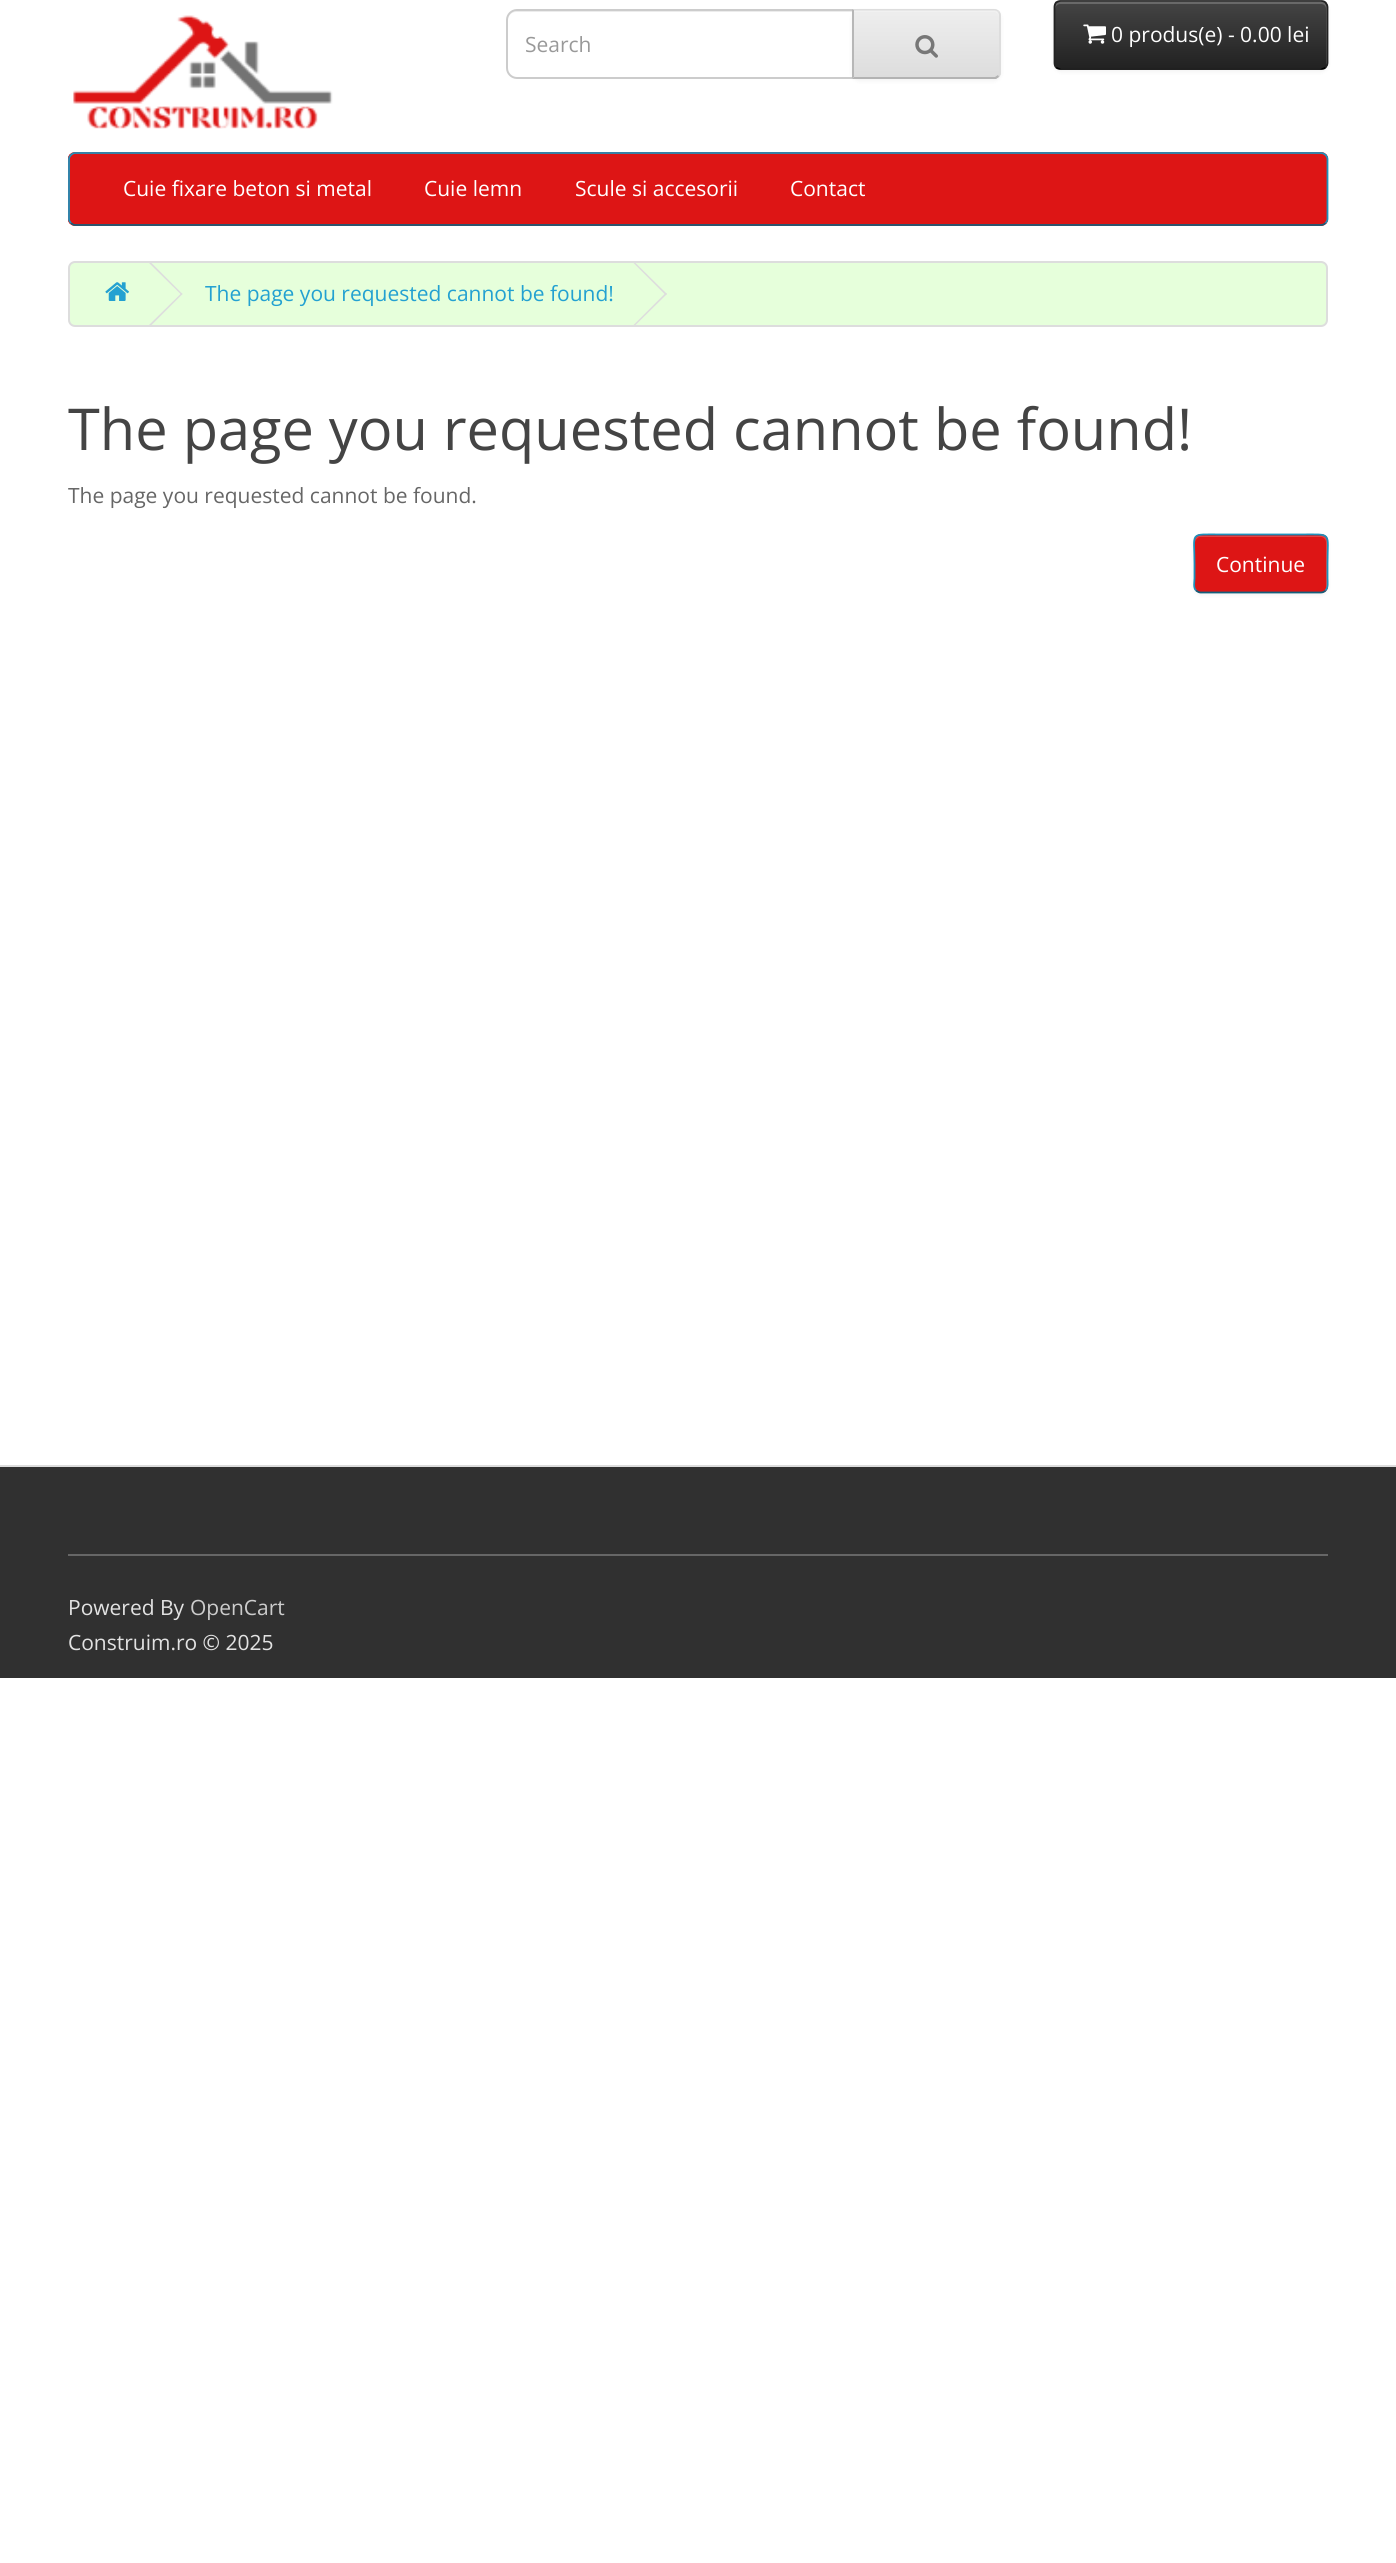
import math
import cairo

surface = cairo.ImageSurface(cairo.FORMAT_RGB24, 1396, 2563)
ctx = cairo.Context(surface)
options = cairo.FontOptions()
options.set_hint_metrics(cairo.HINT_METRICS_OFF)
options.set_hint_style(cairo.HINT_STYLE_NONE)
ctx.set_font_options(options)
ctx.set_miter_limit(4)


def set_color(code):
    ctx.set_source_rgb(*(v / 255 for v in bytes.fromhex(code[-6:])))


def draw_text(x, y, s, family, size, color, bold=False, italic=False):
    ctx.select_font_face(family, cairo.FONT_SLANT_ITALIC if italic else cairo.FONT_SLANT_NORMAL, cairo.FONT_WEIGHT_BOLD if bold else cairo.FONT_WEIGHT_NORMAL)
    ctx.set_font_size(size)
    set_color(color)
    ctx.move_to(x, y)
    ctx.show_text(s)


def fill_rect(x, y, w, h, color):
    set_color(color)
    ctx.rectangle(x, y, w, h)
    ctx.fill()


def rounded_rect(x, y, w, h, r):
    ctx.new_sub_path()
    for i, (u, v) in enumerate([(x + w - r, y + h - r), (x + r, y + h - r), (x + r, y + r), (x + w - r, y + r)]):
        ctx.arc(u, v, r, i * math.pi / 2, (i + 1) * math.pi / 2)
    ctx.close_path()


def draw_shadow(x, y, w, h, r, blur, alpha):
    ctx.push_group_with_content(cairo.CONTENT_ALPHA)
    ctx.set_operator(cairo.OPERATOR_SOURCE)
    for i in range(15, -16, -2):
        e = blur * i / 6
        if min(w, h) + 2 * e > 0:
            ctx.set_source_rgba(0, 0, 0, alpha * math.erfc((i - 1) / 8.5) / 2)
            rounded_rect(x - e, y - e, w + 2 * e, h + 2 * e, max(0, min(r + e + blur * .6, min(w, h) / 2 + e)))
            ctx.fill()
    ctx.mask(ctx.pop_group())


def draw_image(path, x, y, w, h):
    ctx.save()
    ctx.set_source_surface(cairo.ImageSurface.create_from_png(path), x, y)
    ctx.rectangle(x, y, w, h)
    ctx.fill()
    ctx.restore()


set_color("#ffffff")
ctx.paint()
draw_image("assets/img1.png", 73, 15, 260, 114)
set_color("#ececec")
ctx.new_path()
ctx.move_to(516, 12)
ctx.line_to(852, 12)
ctx.line_to(852, 11)
ctx.line_to(517, 11)
ctx.curve_to(511, 11, 508, 16, 508, 21)
ctx.curve_to(508, 16, 511, 12, 516, 12)
ctx.close_path()
ctx.fill()
ctx.new_path()
ctx.move_to(517, 10)
ctx.line_to(853, 10)
ctx.line_to(853, 78)
ctx.line_to(517, 78)
ctx.curve_to(511.5, 78, 507, 73.5, 507, 68)
ctx.line_to(507, 20)
ctx.curve_to(507, 14.5, 511.5, 10, 517, 10)
ctx.close_path()
set_color("#cccccc")
ctx.stroke()
draw_text(525, 52, "Search", "Open Sans", 21, "#999999")
set_color("#000000")
draw_shadow(852, 11, 149, 70, 7, 2, 0.05)
set_color("#e7e7e7")
ctx.new_path()
ctx.move_to(852, 9)
ctx.line_to(994, 9)
ctx.curve_to(998, 9, 1001, 12, 1001, 16)
ctx.line_to(1001, 72)
ctx.curve_to(1001, 76, 998, 79, 994, 79)
ctx.line_to(852, 79)
ctx.close_path()
ctx.fill()
ctx.save()
ctx.new_path()
ctx.move_to(852, 9)
ctx.line_to(994, 9)
ctx.curve_to(998, 9, 1001, 12, 1001, 16)
ctx.line_to(1001, 72)
ctx.curve_to(1001, 76, 998, 79, 994, 79)
ctx.line_to(852, 79)
ctx.close_path()
ctx.clip()
gradient = cairo.LinearGradient(927, 10, 927, 77)
gradient.add_color_stop_rgba(0, 0.933, 0.933, 0.933, 1)
gradient.add_color_stop_rgba(1, 0.867, 0.867, 0.867, 1)
ctx.set_source(gradient)
ctx.rectangle(854, 11, 147, 66)
ctx.fill()
ctx.restore()
set_color("#f1f1f1")
ctx.new_path()
ctx.move_to(854, 12)
ctx.line_to(994, 12)
ctx.curve_to(997, 12, 999, 15, 999, 18)
ctx.line_to(999, 16)
ctx.curve_to(999, 13, 997, 11, 994, 11)
ctx.line_to(854, 11)
ctx.close_path()
ctx.fill()
set_color("#dddddd")
ctx.new_path()
ctx.move_to(854, 10)
ctx.line_to(994, 10)
ctx.curve_to(996, 10, 997, 11, 998, 12)
ctx.line_to(999, 11)
ctx.curve_to(998, 10, 996, 9, 994, 9)
ctx.line_to(852, 9)
ctx.close_path()
ctx.fill()
ctx.new_path()
ctx.move_to(999, 11)
ctx.curve_to(1000, 12, 1001, 14, 1001, 16)
ctx.line_to(1001, 72)
ctx.curve_to(1001, 74, 1000, 76, 999, 77)
ctx.line_to(998, 75)
ctx.curve_to(999, 75, 999, 73, 999, 72)
ctx.line_to(999, 16)
ctx.curve_to(999, 15, 999, 13, 998, 12)
ctx.close_path()
ctx.fill()
set_color("#b3b3b3")
ctx.new_path()
ctx.move_to(999, 77)
ctx.line_to(996, 79)
ctx.line_to(852, 79)
ctx.line_to(854, 77)
ctx.line_to(995, 77)
ctx.line_to(998, 75)
ctx.close_path()
ctx.fill()
set_color("#b7b7b7")
ctx.new_path()
ctx.move_to(852, 79)
ctx.line_to(854, 77)
ctx.line_to(854, 10)
ctx.line_to(852, 9)
ctx.close_path()
ctx.fill()
draw_image("assets/img2.png", 915, 35, 23, 23)
set_color("#000000")
draw_shadow(1054, 2, 274, 70, 7, 2, 0.05)
ctx.save()
rounded_rect(1054, 0, 274, 70, 7)
ctx.clip()
gradient = cairo.LinearGradient(1191, 1.7, 1191, 68)
gradient.add_color_stop_rgba(0, 0.267, 0.267, 0.267, 1)
gradient.add_color_stop_rgba(1, 0.133, 0.133, 0.133, 1)
ctx.set_source(gradient)
ctx.rectangle(1054, 2, 274, 66)
ctx.fill()
ctx.restore()
ctx.set_source_rgba(1, 1, 1, 0.2)
ctx.new_path()
ctx.move_to(1060, 4)
ctx.line_to(1321, 4)
ctx.curve_to(1324, 4, 1326, 6, 1326, 9)
ctx.line_to(1326, 66)
ctx.curve_to(1327, 65, 1327, 64, 1327, 63)
ctx.line_to(1327, 7)
ctx.curve_to(1327, 4, 1325, 2, 1322, 2)
ctx.line_to(1060, 2)
ctx.curve_to(1057, 2, 1055, 4, 1055, 7)
ctx.line_to(1055, 9)
ctx.curve_to(1055, 6, 1058, 4, 1060, 4)
ctx.close_path()
ctx.fill()
ctx.new_path()
ctx.move_to(1325.5, 67.5)
ctx.curve_to(1324.5, 68.5, 1323, 69, 1321, 69)
ctx.line_to(1060.5, 69)
ctx.curve_to(1059, 69, 1057.5, 68.5, 1056, 67.5)
set_color("#000000")
ctx.set_line_width(1.8)
ctx.stroke()
ctx.new_path()
ctx.move_to(1056, 67.5)
ctx.curve_to(1055, 66, 1054.5, 64.5, 1054.5, 63)
ctx.line_to(1054.5, 7)
ctx.curve_to(1054.5, 5.5, 1055, 4, 1056, 2.5)
ctx.curve_to(1057.5, 1.5, 1059, 1, 1060.5, 1)
ctx.line_to(1321, 1)
ctx.curve_to(1323, 1, 1324.5, 1.5, 1325.5, 2.5)
ctx.curve_to(1326.5, 4, 1327.5, 5.5, 1327.5, 7)
ctx.line_to(1327.5, 63)
ctx.curve_to(1327.5, 64.5, 1326.5, 66, 1325.5, 67.5)
set_color("#222222")
ctx.stroke()
draw_image("assets/img3.png", 1083, 24, 23, 20)
draw_text(1111, 42, "0 produs(e) - 0.00 lei", "Open Sans", 21, "#ffffff")
set_color("#dd1515")
rounded_rect(68, 152, 1260, 74, 7)
ctx.fill()
ctx.save()
rounded_rect(68, 152, 1260, 74, 7)
ctx.clip()
fill_rect(68, 154, 1260, 70, "#dd1515")
ctx.restore()
ctx.new_path()
ctx.move_to(1325.5, 223)
ctx.curve_to(1324.5, 224, 1323, 225, 1321, 225)
ctx.line_to(75, 225)
ctx.curve_to(73.5, 225, 72, 224, 71, 223)
set_color("#145e7a")
ctx.stroke()
ctx.new_path()
ctx.move_to(71, 223)
ctx.curve_to(70, 222, 69, 220.5, 69, 219)
ctx.line_to(69, 159)
ctx.curve_to(69, 157.5, 70, 156, 71, 155)
ctx.curve_to(72, 154, 73.5, 153, 75, 153)
ctx.line_to(1321, 153)
ctx.curve_to(1323, 153, 1324.5, 154, 1325.5, 155)
ctx.curve_to(1326.5, 156, 1327.5, 157.5, 1327.5, 159)
ctx.line_to(1327.5, 219)
ctx.curve_to(1327.5, 220.5, 1326.5, 222, 1325.5, 223)
set_color("#1f90bb")
ctx.stroke()
draw_text(123, 196, "Cuie fixare beton si metal", "Open Sans", 21, "#ffffff")
draw_text(424, 196, "Cuie lemn", "Open Sans", 21, "#ffffff")
draw_text(575, 196, "Scule si accesorii", "Open Sans", 21, "#ffffff")
draw_text(790, 196, "Contact", "Open Sans", 21, "#ffffff")
set_color("#e6ffdb")
rounded_rect(69, 262, 1258, 64, 6)
ctx.fill_preserve()
set_color("#dddddd")
ctx.set_line_width(2)
ctx.stroke()
draw_image("assets/img4.png", 105, 282, 24, 19)
ctx.new_path()
ctx.move_to(149, 263)
ctx.line_to(150.5, 262)
ctx.line_to(182.5, 294)
ctx.line_to(181.5, 295)
ctx.close_path()
ctx.fill()
ctx.new_path()
ctx.move_to(149, 325)
ctx.line_to(181.5, 293)
ctx.line_to(182.5, 294)
ctx.line_to(150.5, 326)
ctx.close_path()
ctx.fill()
draw_text(205, 301, "The page you requested cannot be found!", "Open Sans", 21, "#23a1d1")
set_color("#dddddd")
ctx.new_path()
ctx.move_to(633.5, 263)
ctx.line_to(634.5, 262)
ctx.line_to(667, 294)
ctx.line_to(665.5, 295)
ctx.close_path()
ctx.fill()
ctx.new_path()
ctx.move_to(633.5, 325)
ctx.line_to(665.5, 293)
ctx.line_to(667, 294)
ctx.line_to(634.5, 326)
ctx.close_path()
ctx.fill()
draw_text(68, 450, "The page you requested cannot be found!", "Open Sans", 57.75, "#444444")
draw_text(68, 503, "The page you requested cannot be found.", "Open Sans", 21, "#666666")
set_color("#000000")
draw_shadow(1194, 536, 134, 59, 7, 2, 0.05)
set_color("#dd1515")
rounded_rect(1194, 534, 134, 59, 7)
ctx.fill()
ctx.save()
rounded_rect(1194, 534, 134, 59, 7)
ctx.clip()
fill_rect(1194, 536, 134, 56, "#dd1515")
ctx.restore()
set_color("#e44444")
ctx.new_path()
ctx.move_to(1200, 537)
ctx.line_to(1321, 537)
ctx.curve_to(1324, 537, 1326, 540, 1326, 542)
ctx.line_to(1326, 588)
ctx.line_to(1325, 591)
ctx.curve_to(1326, 590, 1327, 588, 1327, 587)
ctx.line_to(1327, 541)
ctx.curve_to(1327, 538, 1325, 536, 1322, 536)
ctx.line_to(1200, 536)
ctx.curve_to(1197, 536, 1195, 538, 1195, 541)
ctx.line_to(1195, 542)
ctx.curve_to(1195, 540, 1198, 537, 1200, 537)
ctx.close_path()
ctx.fill()
ctx.new_path()
ctx.move_to(1325.5, 590.5)
ctx.curve_to(1324.5, 591.5, 1323, 592.5, 1321, 592.5)
ctx.line_to(1200.5, 592.5)
ctx.curve_to(1199, 592.5, 1197.5, 591.5, 1196, 590.5)
set_color("#145e7a")
ctx.set_line_width(1.8)
ctx.stroke()
ctx.new_path()
ctx.move_to(1196, 590.5)
ctx.curve_to(1193, 587.5, 1194.5, 582, 1194.5, 578.5)
ctx.line_to(1194.5, 563.5)
ctx.curve_to(1194.5, 531.5, 1188.5, 534.5, 1220.5, 534.5)
ctx.line_to(1301, 534.5)
ctx.curve_to(1333, 534.5, 1327.5, 531.5, 1327.5, 563.5)
ctx.line_to(1327.5, 578.5)
ctx.curve_to(1327.5, 582, 1328.5, 587.5, 1325.5, 590.5)
set_color("#1f90bb")
ctx.stroke()
draw_text(1216, 572, "Continue", "Open Sans", 21, "#ffffff")
fill_rect(0, 1467, 1396, 211, "#303030")
fill_rect(0, 1465, 1396, 2, "#dddddd")
fill_rect(68, 1554, 1260, 2, "#666666")
draw_text(68, 1615, "Powered By", "Open Sans", 21, "#e2e2e2")
draw_text(190, 1615, "OpenCart", "Open Sans", 21, "#cccccc")
draw_text(68, 1650, "Construim.ro © 2025", "Open Sans", 21, "#e2e2e2")
surface.write_to_png("output.png")
